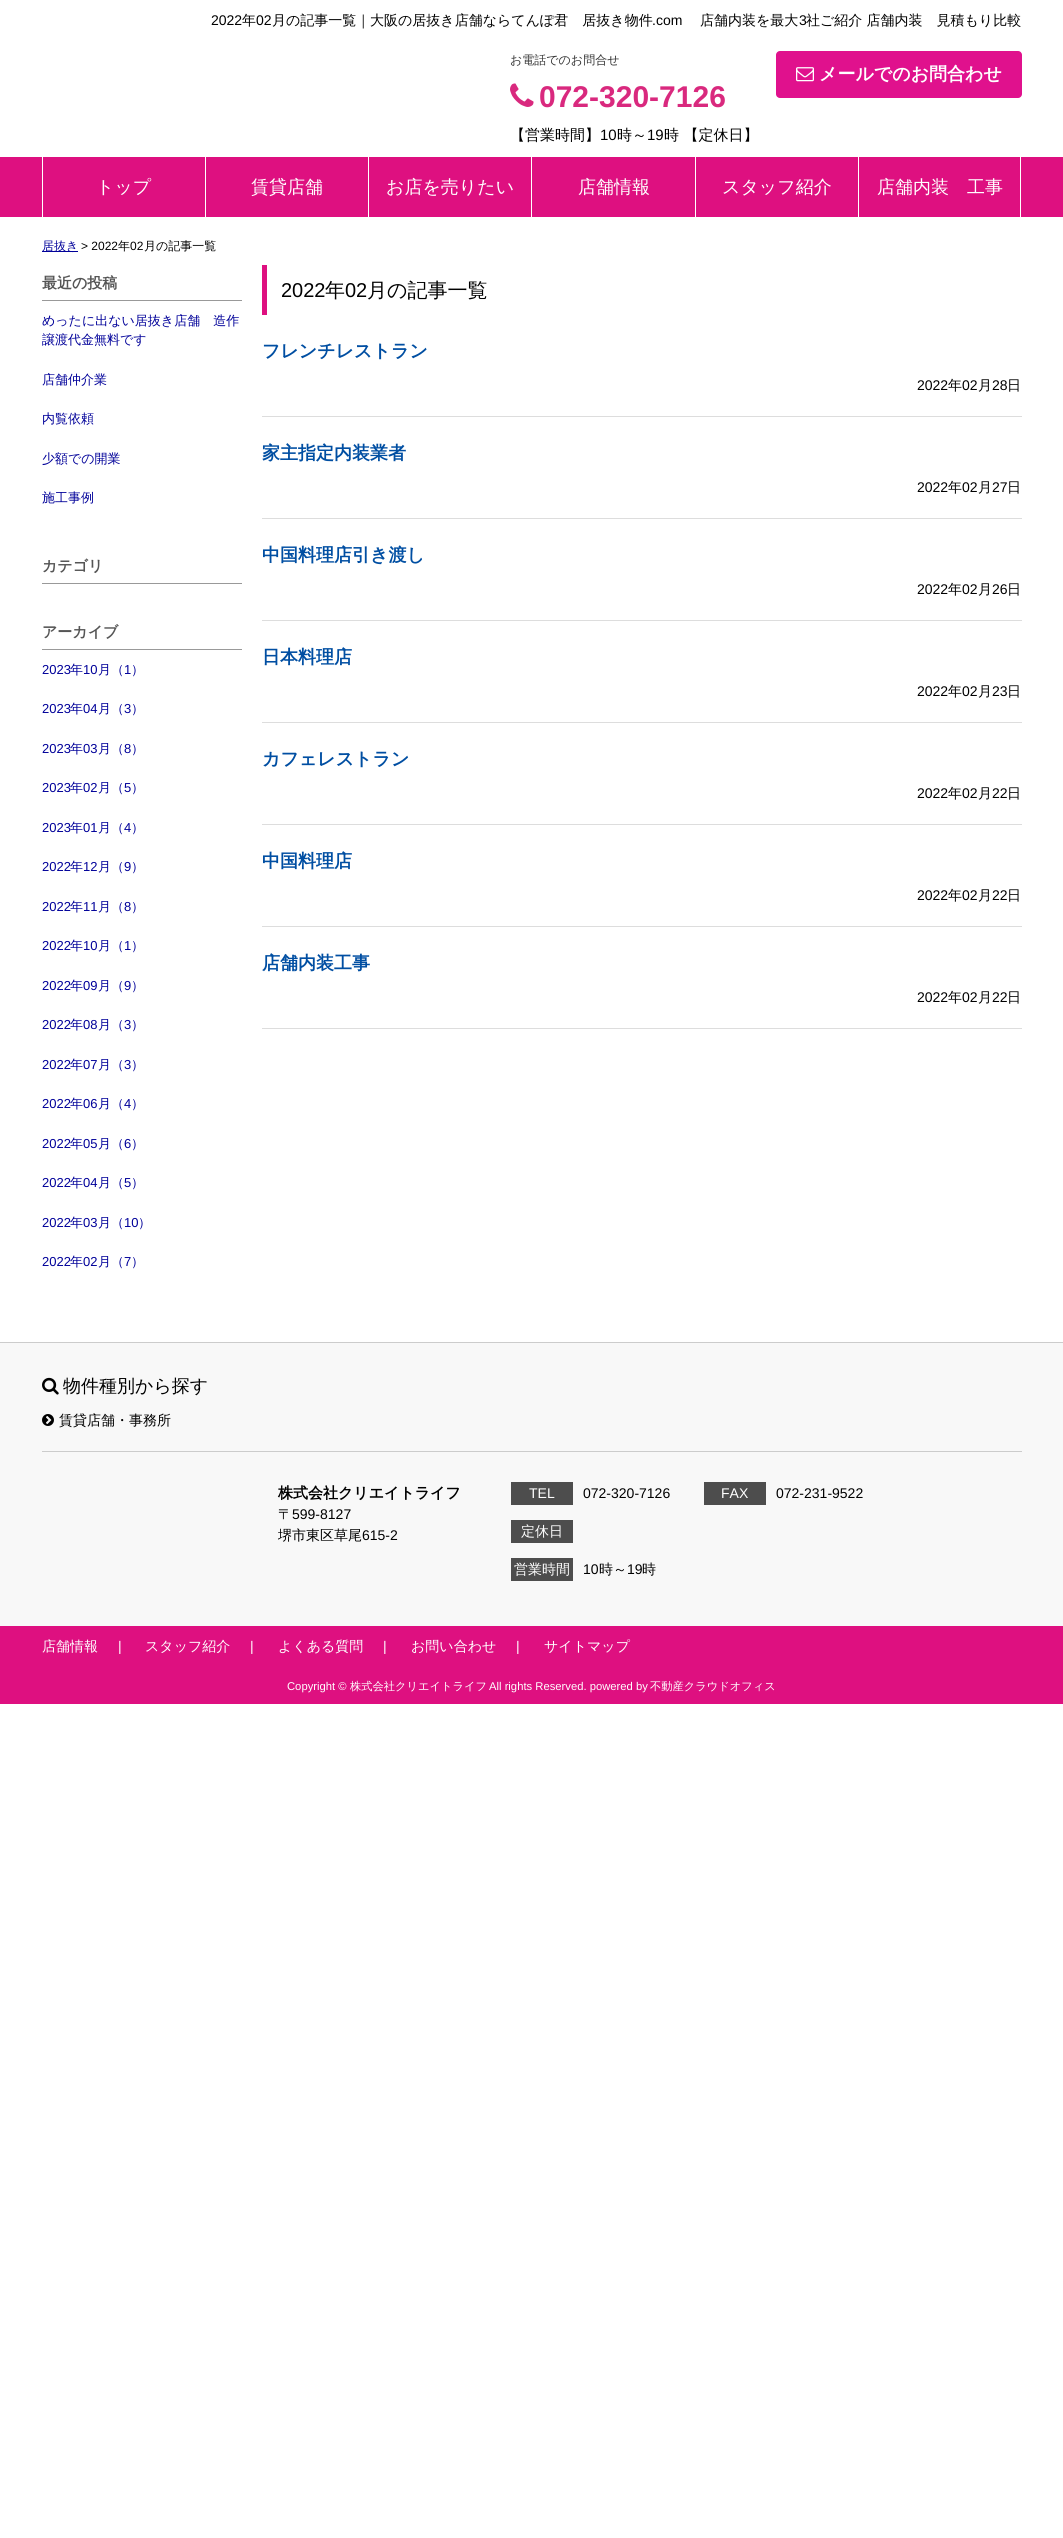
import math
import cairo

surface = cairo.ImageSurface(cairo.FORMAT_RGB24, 1063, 2538)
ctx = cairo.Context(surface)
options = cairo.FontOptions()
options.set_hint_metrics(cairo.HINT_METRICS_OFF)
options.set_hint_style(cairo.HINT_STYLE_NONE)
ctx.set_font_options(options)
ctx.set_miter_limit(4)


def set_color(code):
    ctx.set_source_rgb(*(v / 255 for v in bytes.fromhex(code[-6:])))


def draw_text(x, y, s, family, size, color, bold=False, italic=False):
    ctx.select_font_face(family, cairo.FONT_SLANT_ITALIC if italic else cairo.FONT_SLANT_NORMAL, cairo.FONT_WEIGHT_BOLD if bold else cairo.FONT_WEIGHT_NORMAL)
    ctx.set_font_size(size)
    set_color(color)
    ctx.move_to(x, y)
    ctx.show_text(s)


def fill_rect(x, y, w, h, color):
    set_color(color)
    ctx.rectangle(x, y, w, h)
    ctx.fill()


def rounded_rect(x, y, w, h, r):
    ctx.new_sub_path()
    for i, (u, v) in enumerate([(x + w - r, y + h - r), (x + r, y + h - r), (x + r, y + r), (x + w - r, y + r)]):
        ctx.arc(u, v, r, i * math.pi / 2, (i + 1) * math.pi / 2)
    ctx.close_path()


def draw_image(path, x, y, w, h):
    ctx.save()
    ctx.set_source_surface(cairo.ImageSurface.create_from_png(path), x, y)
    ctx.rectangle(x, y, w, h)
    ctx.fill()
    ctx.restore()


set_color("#ffffff")
ctx.paint()
draw_text(211, 25, "2022", "Liberation Sans", 14, "#000000")
draw_text(242, 25, "年", "WenQuanYi Zen Hei Medium", 14, "#000000")
draw_text(256, 25, "02", "Liberation Sans", 14, "#000000")
draw_text(272, 25, "月の記事一覧｜大阪の居抜き店舗ならてんぽ君　居抜き物件", "WenQuanYi Zen Hei Medium", 14, "#000000")
draw_text(652, 25, ".com", "Liberation Sans", 14, "#000000")
draw_text(700, 25, "店舗内装を最大", "WenQuanYi Zen Hei Medium", 14, "#000000")
draw_text(799, 25, "3", "Liberation Sans", 14, "#000000")
draw_text(806, 25, "社ご紹介 店舗内装　見積もり比較", "WenQuanYi Zen Hei Medium", 14, "#000000")
draw_text(510, 64, "お電話でのお問合せ", "WenQuanYi Zen Hei Medium", 12, "#333333")
draw_image("assets/img1.png", 510, 83, 24, 24)
draw_text(539, 107, "072-320-7126", "Liberation Sans", 30, "#d9297e", bold=True)
set_color("#e0118d")
rounded_rect(776, 51, 246, 47, 4)
ctx.fill()
draw_image("assets/img2.png", 796, 67, 18, 15)
draw_text(819, 80, "メールでのお問合わせ", "WenQuanYi Zen Hei", 18, "#ffffff", bold=True)
draw_text(510, 140, "【営業時間】", "WenQuanYi Zen Hei Medium", 15, "#000000")
draw_text(600, 140, "10", "Liberation Sans", 15, "#000000")
draw_text(617, 140, "時～", "WenQuanYi Zen Hei Medium", 15, "#000000")
draw_text(647, 140, "19", "Liberation Sans", 15, "#000000")
draw_text(664, 140, "時 【定休日】", "WenQuanYi Zen Hei Medium", 15, "#000000")
fill_rect(0, 157, 1063, 60, "#de1080")
fill_rect(42, 157, 1, 60, "#ffffff")
draw_text(96, 193, "トップ", "WenQuanYi Zen Hei Medium", 18, "#ffffff")
fill_rect(205, 157, 1, 60, "#ffffff")
draw_text(251, 193, "賃貸店舗", "WenQuanYi Zen Hei Medium", 18, "#ffffff")
fill_rect(368, 157, 1, 60, "#ffffff")
draw_text(386, 193, "お店を売りたい", "WenQuanYi Zen Hei Medium", 18, "#ffffff")
fill_rect(531, 157, 1, 60, "#ffffff")
draw_text(578, 193, "店舗情報", "WenQuanYi Zen Hei Medium", 18, "#ffffff")
fill_rect(695, 157, 1, 60, "#ffffff")
draw_text(722, 193, "スタッフ紹介", "WenQuanYi Zen Hei Medium", 18, "#ffffff")
fill_rect(1020, 157, 1, 60, "#ffffff")
fill_rect(858, 157, 1, 60, "#ffffff")
draw_text(877, 193, "店舗内装　工事", "WenQuanYi Zen Hei Medium", 18, "#ffffff")
fill_rect(42, 251, 36, 1, "#000099")
draw_text(42, 250, "居抜き", "WenQuanYi Zen Hei Medium", 12, "#000099")
draw_text(81, 250, "> 2022", "Liberation Sans", 12, "#000000")
draw_text(118, 250, "年", "WenQuanYi Zen Hei Medium", 12, "#000000")
draw_text(130, 250, "02", "Liberation Sans", 12, "#000000")
draw_text(144, 250, "月の記事一覧", "WenQuanYi Zen Hei Medium", 12, "#000000")
fill_rect(42, 300, 200, 1, "#999999")
draw_text(42, 288, "最近の投稿", "WenQuanYi Zen Hei", 15, "#555555", bold=True)
draw_text(42, 325, "めったに出ない居抜き店舗　造作", "WenQuanYi Zen Hei Medium", 13, "#000099")
draw_text(42, 344, "譲渡代金無料です", "WenQuanYi Zen Hei Medium", 13, "#000099")
draw_text(42, 384, "店舗仲介業", "WenQuanYi Zen Hei Medium", 13, "#000099")
draw_text(42, 423, "内覧依頼", "WenQuanYi Zen Hei Medium", 13, "#000099")
draw_text(42, 463, "少額での開業", "WenQuanYi Zen Hei Medium", 13, "#000099")
draw_text(42, 502, "施工事例", "WenQuanYi Zen Hei Medium", 13, "#000099")
fill_rect(42, 583, 200, 1, "#999999")
draw_text(42, 571, "カテゴリ", "WenQuanYi Zen Hei", 15, "#555555", bold=True)
fill_rect(42, 649, 200, 1, "#999999")
draw_text(42, 637, "アーカイブ", "WenQuanYi Zen Hei", 15, "#555555", bold=True)
draw_text(42, 674, "2023", "Liberation Sans", 13, "#000099")
draw_text(70, 674, "年", "WenQuanYi Zen Hei Medium", 13, "#000099")
draw_text(83, 674, "10", "Liberation Sans", 13, "#000099")
draw_text(98, 674, "月（", "WenQuanYi Zen Hei Medium", 13, "#000099")
draw_text(124, 674, "1", "Liberation Sans", 13, "#000099")
draw_text(131, 674, "）", "WenQuanYi Zen Hei Medium", 13, "#000099")
draw_text(42, 713, "2023", "Liberation Sans", 13, "#000099")
draw_text(70, 713, "年", "WenQuanYi Zen Hei Medium", 13, "#000099")
draw_text(83, 713, "04", "Liberation Sans", 13, "#000099")
draw_text(98, 713, "月（", "WenQuanYi Zen Hei Medium", 13, "#000099")
draw_text(124, 713, "3", "Liberation Sans", 13, "#000099")
draw_text(131, 713, "）", "WenQuanYi Zen Hei Medium", 13, "#000099")
draw_text(42, 753, "2023", "Liberation Sans", 13, "#000099")
draw_text(70, 753, "年", "WenQuanYi Zen Hei Medium", 13, "#000099")
draw_text(83, 753, "03", "Liberation Sans", 13, "#000099")
draw_text(98, 753, "月（", "WenQuanYi Zen Hei Medium", 13, "#000099")
draw_text(124, 753, "8", "Liberation Sans", 13, "#000099")
draw_text(131, 753, "）", "WenQuanYi Zen Hei Medium", 13, "#000099")
draw_text(42, 792, "2023", "Liberation Sans", 13, "#000099")
draw_text(70, 792, "年", "WenQuanYi Zen Hei Medium", 13, "#000099")
draw_text(83, 792, "02", "Liberation Sans", 13, "#000099")
draw_text(98, 792, "月（", "WenQuanYi Zen Hei Medium", 13, "#000099")
draw_text(124, 792, "5", "Liberation Sans", 13, "#000099")
draw_text(131, 792, "）", "WenQuanYi Zen Hei Medium", 13, "#000099")
draw_text(42, 832, "2023", "Liberation Sans", 13, "#000099")
draw_text(70, 832, "年", "WenQuanYi Zen Hei Medium", 13, "#000099")
draw_text(83, 832, "01", "Liberation Sans", 13, "#000099")
draw_text(98, 832, "月（", "WenQuanYi Zen Hei Medium", 13, "#000099")
draw_text(124, 832, "4", "Liberation Sans", 13, "#000099")
draw_text(131, 832, "）", "WenQuanYi Zen Hei Medium", 13, "#000099")
draw_text(42, 871, "2022", "Liberation Sans", 13, "#000099")
draw_text(70, 871, "年", "WenQuanYi Zen Hei Medium", 13, "#000099")
draw_text(83, 871, "12", "Liberation Sans", 13, "#000099")
draw_text(98, 871, "月（", "WenQuanYi Zen Hei Medium", 13, "#000099")
draw_text(124, 871, "9", "Liberation Sans", 13, "#000099")
draw_text(131, 871, "）", "WenQuanYi Zen Hei Medium", 13, "#000099")
draw_text(42, 911, "2022", "Liberation Sans", 13, "#000099")
draw_text(70, 911, "年", "WenQuanYi Zen Hei Medium", 13, "#000099")
draw_text(83, 911, "11", "Liberation Sans", 13, "#000099")
draw_text(98, 911, "月（", "WenQuanYi Zen Hei Medium", 13, "#000099")
draw_text(124, 911, "8", "Liberation Sans", 13, "#000099")
draw_text(131, 911, "）", "WenQuanYi Zen Hei Medium", 13, "#000099")
draw_text(42, 950, "2022", "Liberation Sans", 13, "#000099")
draw_text(70, 950, "年", "WenQuanYi Zen Hei Medium", 13, "#000099")
draw_text(83, 950, "10", "Liberation Sans", 13, "#000099")
draw_text(98, 950, "月（", "WenQuanYi Zen Hei Medium", 13, "#000099")
draw_text(124, 950, "1", "Liberation Sans", 13, "#000099")
draw_text(131, 950, "）", "WenQuanYi Zen Hei Medium", 13, "#000099")
draw_text(42, 990, "2022", "Liberation Sans", 13, "#000099")
draw_text(70, 990, "年", "WenQuanYi Zen Hei Medium", 13, "#000099")
draw_text(83, 990, "09", "Liberation Sans", 13, "#000099")
draw_text(98, 990, "月（", "WenQuanYi Zen Hei Medium", 13, "#000099")
draw_text(124, 990, "9", "Liberation Sans", 13, "#000099")
draw_text(131, 990, "）", "WenQuanYi Zen Hei Medium", 13, "#000099")
draw_text(42, 1029, "2022", "Liberation Sans", 13, "#000099")
draw_text(70, 1029, "年", "WenQuanYi Zen Hei Medium", 13, "#000099")
draw_text(83, 1029, "08", "Liberation Sans", 13, "#000099")
draw_text(98, 1029, "月（", "WenQuanYi Zen Hei Medium", 13, "#000099")
draw_text(124, 1029, "3", "Liberation Sans", 13, "#000099")
draw_text(131, 1029, "）", "WenQuanYi Zen Hei Medium", 13, "#000099")
draw_text(42, 1069, "2022", "Liberation Sans", 13, "#000099")
draw_text(70, 1069, "年", "WenQuanYi Zen Hei Medium", 13, "#000099")
draw_text(83, 1069, "07", "Liberation Sans", 13, "#000099")
draw_text(98, 1069, "月（", "WenQuanYi Zen Hei Medium", 13, "#000099")
draw_text(124, 1069, "3", "Liberation Sans", 13, "#000099")
draw_text(131, 1069, "）", "WenQuanYi Zen Hei Medium", 13, "#000099")
draw_text(42, 1108, "2022", "Liberation Sans", 13, "#000099")
draw_text(70, 1108, "年", "WenQuanYi Zen Hei Medium", 13, "#000099")
draw_text(83, 1108, "06", "Liberation Sans", 13, "#000099")
draw_text(98, 1108, "月（", "WenQuanYi Zen Hei Medium", 13, "#000099")
draw_text(124, 1108, "4", "Liberation Sans", 13, "#000099")
draw_text(131, 1108, "）", "WenQuanYi Zen Hei Medium", 13, "#000099")
draw_text(42, 1148, "2022", "Liberation Sans", 13, "#000099")
draw_text(70, 1148, "年", "WenQuanYi Zen Hei Medium", 13, "#000099")
draw_text(83, 1148, "05", "Liberation Sans", 13, "#000099")
draw_text(98, 1148, "月（", "WenQuanYi Zen Hei Medium", 13, "#000099")
draw_text(124, 1148, "6", "Liberation Sans", 13, "#000099")
draw_text(131, 1148, "）", "WenQuanYi Zen Hei Medium", 13, "#000099")
draw_text(42, 1187, "2022", "Liberation Sans", 13, "#000099")
draw_text(70, 1187, "年", "WenQuanYi Zen Hei Medium", 13, "#000099")
draw_text(83, 1187, "04", "Liberation Sans", 13, "#000099")
draw_text(98, 1187, "月（", "WenQuanYi Zen Hei Medium", 13, "#000099")
draw_text(124, 1187, "5", "Liberation Sans", 13, "#000099")
draw_text(131, 1187, "）", "WenQuanYi Zen Hei Medium", 13, "#000099")
draw_text(42, 1227, "2022", "Liberation Sans", 13, "#000099")
draw_text(70, 1227, "年", "WenQuanYi Zen Hei Medium", 13, "#000099")
draw_text(83, 1227, "03", "Liberation Sans", 13, "#000099")
draw_text(98, 1227, "月（", "WenQuanYi Zen Hei Medium", 13, "#000099")
draw_text(124, 1227, "10", "Liberation Sans", 13, "#000099")
draw_text(138, 1227, "）", "WenQuanYi Zen Hei Medium", 13, "#000099")
draw_text(42, 1266, "2022", "Liberation Sans", 13, "#000099")
draw_text(70, 1266, "年", "WenQuanYi Zen Hei Medium", 13, "#000099")
draw_text(83, 1266, "02", "Liberation Sans", 13, "#000099")
draw_text(98, 1266, "月（", "WenQuanYi Zen Hei Medium", 13, "#000099")
draw_text(124, 1266, "7", "Liberation Sans", 13, "#000099")
draw_text(131, 1266, "）", "WenQuanYi Zen Hei Medium", 13, "#000099")
fill_rect(262, 265, 5, 50, "#de1080")
draw_text(281, 297, "2022", "Liberation Sans", 20, "#000000")
draw_text(325, 297, "年", "WenQuanYi Zen Hei Medium", 20, "#000000")
draw_text(345, 297, "02", "Liberation Sans", 20, "#000000")
draw_text(367, 297, "月の記事一覧", "WenQuanYi Zen Hei Medium", 20, "#000000")
fill_rect(262, 416, 760, 1, "#dddddd")
draw_text(262, 357, "フレンチレストラン", "WenQuanYi Zen Hei", 18, "#004ea2", bold=True)
draw_text(917, 390, "2022", "Liberation Sans", 14, "#000000")
draw_text(948, 390, "年", "WenQuanYi Zen Hei Medium", 14, "#000000")
draw_text(962, 390, "02", "Liberation Sans", 14, "#000000")
draw_text(978, 390, "月", "WenQuanYi Zen Hei Medium", 14, "#000000")
draw_text(992, 390, "28", "Liberation Sans", 14, "#000000")
draw_text(1007, 390, "日", "WenQuanYi Zen Hei Medium", 14, "#000000")
fill_rect(262, 518, 760, 1, "#dddddd")
draw_text(262, 459, "家主指定内装業者", "WenQuanYi Zen Hei", 18, "#004ea2", bold=True)
draw_text(917, 492, "2022", "Liberation Sans", 14, "#000000")
draw_text(948, 492, "年", "WenQuanYi Zen Hei Medium", 14, "#000000")
draw_text(962, 492, "02", "Liberation Sans", 14, "#000000")
draw_text(978, 492, "月", "WenQuanYi Zen Hei Medium", 14, "#000000")
draw_text(992, 492, "27", "Liberation Sans", 14, "#000000")
draw_text(1007, 492, "日", "WenQuanYi Zen Hei Medium", 14, "#000000")
fill_rect(262, 620, 760, 1, "#dddddd")
draw_text(262, 561, "中国料理店引き渡し", "WenQuanYi Zen Hei", 18, "#004ea2", bold=True)
draw_text(917, 594, "2022", "Liberation Sans", 14, "#000000")
draw_text(948, 594, "年", "WenQuanYi Zen Hei Medium", 14, "#000000")
draw_text(962, 594, "02", "Liberation Sans", 14, "#000000")
draw_text(978, 594, "月", "WenQuanYi Zen Hei Medium", 14, "#000000")
draw_text(992, 594, "26", "Liberation Sans", 14, "#000000")
draw_text(1007, 594, "日", "WenQuanYi Zen Hei Medium", 14, "#000000")
fill_rect(262, 722, 760, 1, "#dddddd")
draw_text(262, 663, "日本料理店", "WenQuanYi Zen Hei", 18, "#004ea2", bold=True)
draw_text(917, 696, "2022", "Liberation Sans", 14, "#000000")
draw_text(948, 696, "年", "WenQuanYi Zen Hei Medium", 14, "#000000")
draw_text(962, 696, "02", "Liberation Sans", 14, "#000000")
draw_text(978, 696, "月", "WenQuanYi Zen Hei Medium", 14, "#000000")
draw_text(992, 696, "23", "Liberation Sans", 14, "#000000")
draw_text(1007, 696, "日", "WenQuanYi Zen Hei Medium", 14, "#000000")
fill_rect(262, 824, 760, 1, "#dddddd")
draw_text(262, 765, "カフェレストラン", "WenQuanYi Zen Hei", 18, "#004ea2", bold=True)
draw_text(917, 798, "2022", "Liberation Sans", 14, "#000000")
draw_text(948, 798, "年", "WenQuanYi Zen Hei Medium", 14, "#000000")
draw_text(962, 798, "02", "Liberation Sans", 14, "#000000")
draw_text(978, 798, "月", "WenQuanYi Zen Hei Medium", 14, "#000000")
draw_text(992, 798, "22", "Liberation Sans", 14, "#000000")
draw_text(1007, 798, "日", "WenQuanYi Zen Hei Medium", 14, "#000000")
fill_rect(262, 926, 760, 1, "#dddddd")
draw_text(262, 867, "中国料理店", "WenQuanYi Zen Hei", 18, "#004ea2", bold=True)
draw_text(917, 900, "2022", "Liberation Sans", 14, "#000000")
draw_text(948, 900, "年", "WenQuanYi Zen Hei Medium", 14, "#000000")
draw_text(962, 900, "02", "Liberation Sans", 14, "#000000")
draw_text(978, 900, "月", "WenQuanYi Zen Hei Medium", 14, "#000000")
draw_text(992, 900, "22", "Liberation Sans", 14, "#000000")
draw_text(1007, 900, "日", "WenQuanYi Zen Hei Medium", 14, "#000000")
fill_rect(262, 1028, 760, 1, "#dddddd")
draw_text(262, 969, "店舗内装工事", "WenQuanYi Zen Hei", 18, "#004ea2", bold=True)
draw_text(917, 1002, "2022", "Liberation Sans", 14, "#000000")
draw_text(948, 1002, "年", "WenQuanYi Zen Hei Medium", 14, "#000000")
draw_text(962, 1002, "02", "Liberation Sans", 14, "#000000")
draw_text(978, 1002, "月", "WenQuanYi Zen Hei Medium", 14, "#000000")
draw_text(992, 1002, "22", "Liberation Sans", 14, "#000000")
draw_text(1007, 1002, "日", "WenQuanYi Zen Hei Medium", 14, "#000000")
fill_rect(0, 1343, 1063, 283, "#f8f8f8")
fill_rect(0, 1342, 1063, 1, "#cccccc")
fill_rect(42, 1451, 980, 1, "#cccccc")
draw_image("assets/img3.png", 42, 1377, 17, 18)
draw_text(63, 1392, "物件種別から探す", "WenQuanYi Zen Hei Medium", 18, "#000000")
draw_image("assets/img4.png", 42, 1414, 12, 12)
draw_text(59, 1425, "賃貸店舗・事務所", "WenQuanYi Zen Hei Medium", 14, "#000000")
draw_text(278, 1498, "株式会社クリエイトライフ", "WenQuanYi Zen Hei", 15, "#000000", bold=True)
draw_text(278, 1519, "〒", "WenQuanYi Zen Hei Medium", 14, "#000000")
draw_text(292, 1519, "599-8127", "Liberation Sans", 14, "#000000")
draw_text(278, 1540, "堺市東区草尾", "WenQuanYi Zen Hei Medium", 14, "#000000")
draw_text(362, 1540, "615-2", "Liberation Sans", 14, "#000000")
fill_rect(511, 1482, 62, 23, "#4d4d4d")
draw_text(529, 1498, "TEL", "Liberation Sans", 14, "#ffffff")
draw_text(583, 1498, "072-320-7126", "Liberation Sans", 14, "#000000")
fill_rect(704, 1482, 62, 23, "#4d4d4d")
draw_text(721, 1498, "FAX", "Liberation Sans", 14, "#ffffff")
draw_text(776, 1498, "072-231-9522", "Liberation Sans", 14, "#000000")
fill_rect(511, 1520, 62, 23, "#4d4d4d")
draw_text(521, 1536, "定休日", "WenQuanYi Zen Hei Medium", 14, "#ffffff")
fill_rect(511, 1558, 62, 23, "#4d4d4d")
draw_text(514, 1574, "営業時間", "WenQuanYi Zen Hei Medium", 14, "#ffffff")
draw_text(583, 1574, "10", "Liberation Sans", 14, "#000000")
draw_text(599, 1574, "時～", "WenQuanYi Zen Hei Medium", 14, "#000000")
draw_text(627, 1574, "19", "Liberation Sans", 14, "#000000")
draw_text(642, 1574, "時", "WenQuanYi Zen Hei Medium", 14, "#000000")
fill_rect(0, 1626, 1063, 78, "#de1080")
draw_text(42, 1651, "店舗情報", "WenQuanYi Zen Hei Medium", 14, "#ffffff")
draw_text(118, 1651, "|", "Liberation Sans", 14, "#ffffff")
draw_text(145, 1651, "スタッフ紹介", "WenQuanYi Zen Hei Medium", 14, "#ffffff")
draw_text(250, 1651, "|", "Liberation Sans", 14, "#ffffff")
draw_text(278, 1651, "よくある質問", "WenQuanYi Zen Hei Medium", 14, "#ffffff")
draw_text(383, 1651, "|", "Liberation Sans", 14, "#ffffff")
draw_text(411, 1651, "お問い合わせ", "WenQuanYi Zen Hei Medium", 14, "#ffffff")
draw_text(516, 1651, "|", "Liberation Sans", 14, "#ffffff")
draw_text(544, 1651, "サイトマップ", "WenQuanYi Zen Hei Medium", 14, "#ffffff")
draw_text(287, 1690, "Copyright ©", "Liberation Sans", 11.25, "#ffffff")
draw_text(350, 1690, "株式会社クリエイトライフ", "WenQuanYi Zen Hei Medium", 11.25, "#ffffff")
draw_text(489, 1690, "All rights Reserved. powered by", "Liberation Sans", 11.25, "#ffffff")
draw_text(650, 1690, "不動産クラウドオフィス", "WenQuanYi Zen Hei Medium", 11.25, "#ffffff")
surface.write_to_png("output.png")
